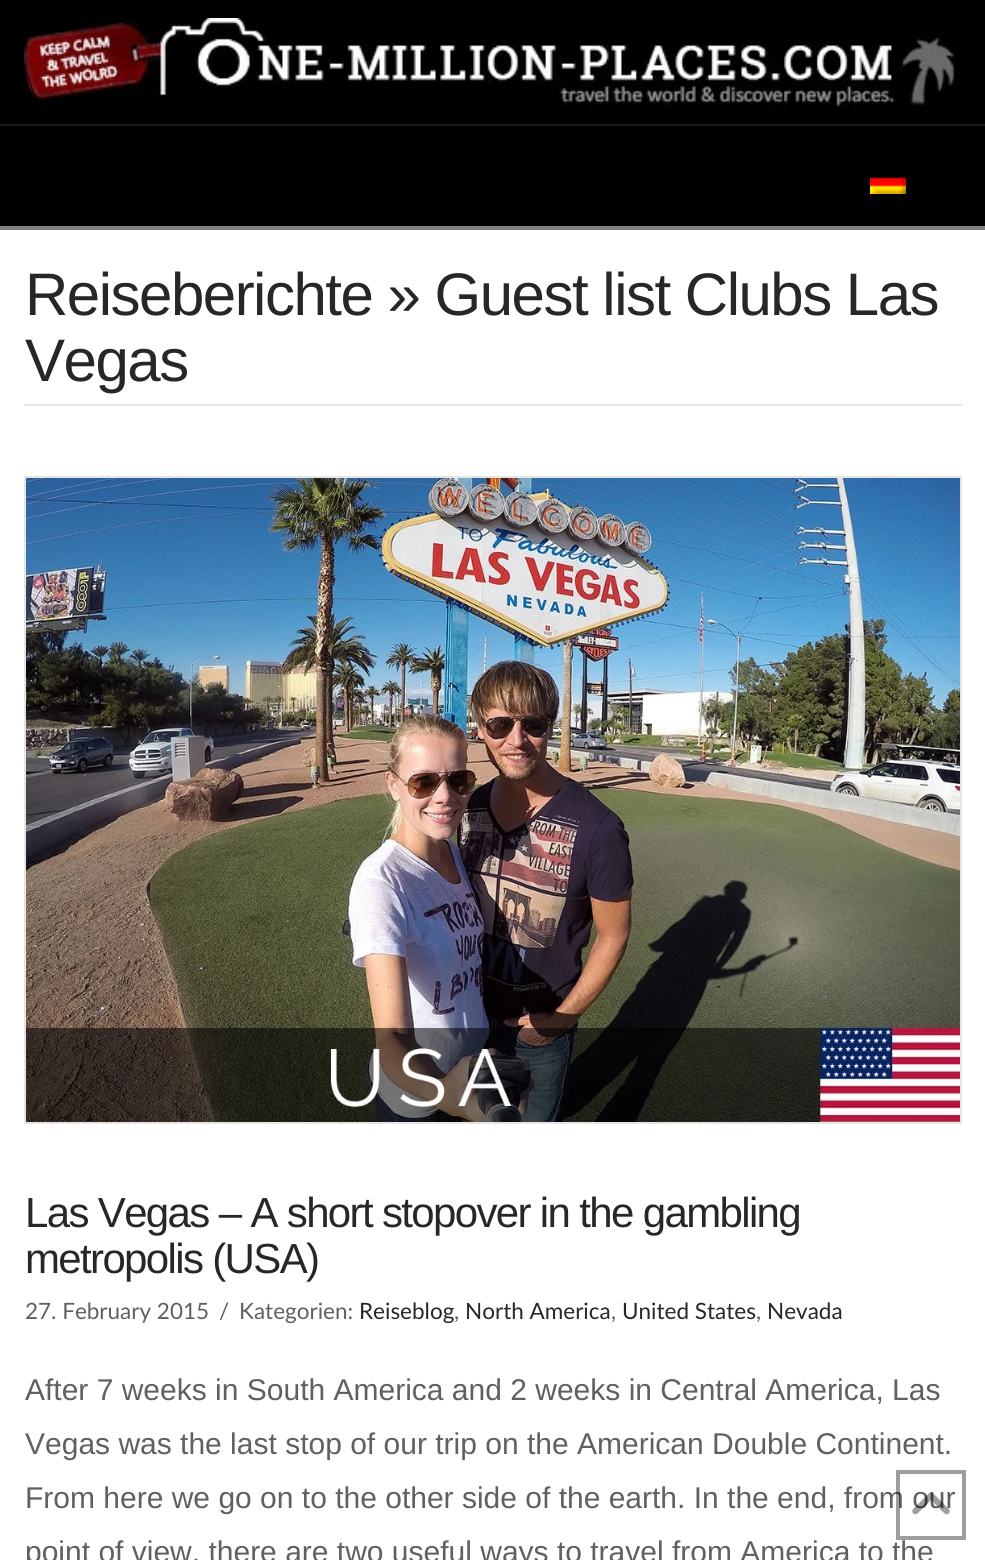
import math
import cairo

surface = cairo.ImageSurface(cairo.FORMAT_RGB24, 985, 1560)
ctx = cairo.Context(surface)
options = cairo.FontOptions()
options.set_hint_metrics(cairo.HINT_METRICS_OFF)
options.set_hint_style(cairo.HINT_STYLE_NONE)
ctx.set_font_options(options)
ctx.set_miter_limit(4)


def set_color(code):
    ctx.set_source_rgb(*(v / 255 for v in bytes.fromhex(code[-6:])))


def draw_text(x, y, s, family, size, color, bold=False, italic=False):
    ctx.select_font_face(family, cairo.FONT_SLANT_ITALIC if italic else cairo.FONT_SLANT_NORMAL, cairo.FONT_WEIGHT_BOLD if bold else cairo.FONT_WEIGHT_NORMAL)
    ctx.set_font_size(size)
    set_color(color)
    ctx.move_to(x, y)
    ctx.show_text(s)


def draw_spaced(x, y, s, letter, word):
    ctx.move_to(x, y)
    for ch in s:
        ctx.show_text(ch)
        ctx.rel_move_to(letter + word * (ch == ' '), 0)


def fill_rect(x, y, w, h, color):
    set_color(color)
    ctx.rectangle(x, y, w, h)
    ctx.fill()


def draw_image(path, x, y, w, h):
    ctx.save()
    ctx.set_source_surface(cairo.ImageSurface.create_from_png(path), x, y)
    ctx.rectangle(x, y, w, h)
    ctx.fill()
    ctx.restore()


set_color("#ffffff")
ctx.paint()
fill_rect(0, 0, 985, 124, "#000000")
fill_rect(0, 124, 985, 2, "#1a1a1a")
draw_image("assets/img1.png", 24, 18, 932, 88)
fill_rect(0, 126, 985, 100, "#000000")
fill_rect(0, 226, 985, 4, "#808080")
draw_image("assets/img2.png", 870, 177, 36, 17)
ctx.select_font_face("Liberation Sans")
ctx.set_font_size(60)
set_color("#272727")
draw_spaced(25, 315, "Reiseberichte » Guest list Clubs Las", -1.5, 0)
draw_spaced(25, 381, "Vegas", -1.5, 0)
fill_rect(24, 404, 938, 2, "#e6e6e6")
ctx.rectangle(25, 477, 936, 646)
set_color("#e5e5e5")
ctx.stroke()
draw_image("assets/img3.png", 26, 478, 934, 644)
ctx.set_font_size(42)
set_color("#272727")
draw_spaced(25, 1227, "Las Vegas – A short stopover in the gambling", -1.65, 0)
draw_spaced(25, 1273, "metropolis (USA)", -1.65, 0)
draw_text(25, 1319, "27. February 2015", "Lato", 22.5, "#635f5f")
draw_text(219, 1319, "/", "Lato", 22.5, "#635f5f")
draw_text(239, 1319, "Kategorien:", "Lato", 22.5, "#635f5f")
draw_text(359, 1319, "Reiseblog", "Lato", 22.5, "#272727")
draw_text(454, 1319, ",", "Lato", 22.5, "#635f5f")
draw_text(465, 1319, "North America", "Lato", 22.5, "#272727")
draw_text(611, 1319, ",", "Lato", 22.5, "#635f5f")
draw_text(622, 1319, "United States", "Lato", 22.5, "#272727")
draw_text(756, 1319, ",", "Lato", 22.5, "#635f5f")
draw_text(767, 1319, "Nevada", "Lato", 22.5, "#272727")
draw_text(25, 1400, "After 7 weeks in South America and 2 weeks in Central America, Las", "Liberation Sans", 30, "#635f5f")
draw_text(25, 1454, "Vegas was the last stop of our trip on the American Double Continent.", "Liberation Sans", 30, "#635f5f")
draw_text(25, 1508, "From here we go on to the other side of the earth. In the end, from our", "Liberation Sans", 30, "#635f5f")
draw_text(25, 1562, "point of view, there are two useful ways to travel from America to the", "Liberation Sans", 30, "#635f5f")
ctx.rectangle(898, 1472, 66, 66)
ctx.set_source_rgba(0, 0, 0, 0.38)
ctx.set_line_width(4)
ctx.stroke()
draw_image("assets/img4.png", 912, 1492, 38, 23)
surface.write_to_png("output.png")
